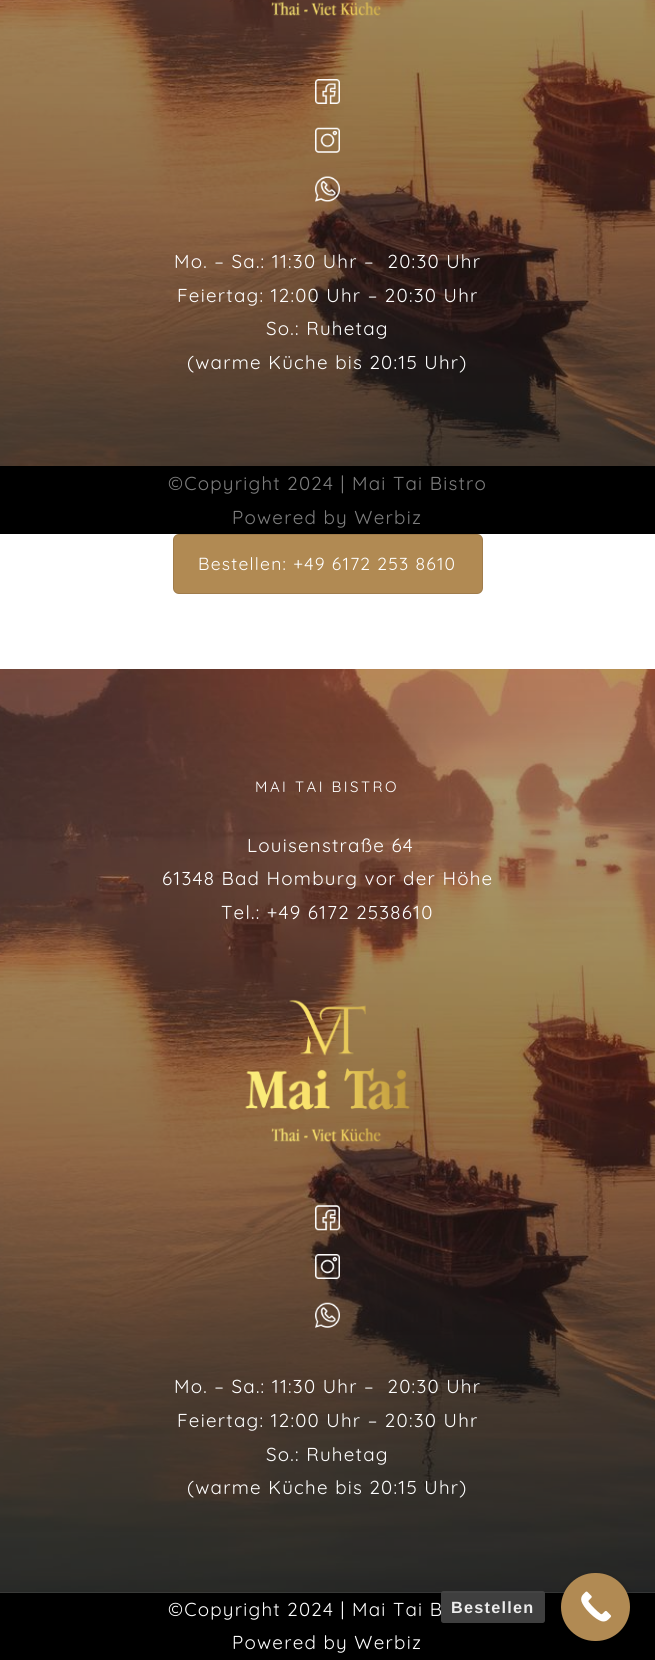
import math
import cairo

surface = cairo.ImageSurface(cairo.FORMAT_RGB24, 655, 1660)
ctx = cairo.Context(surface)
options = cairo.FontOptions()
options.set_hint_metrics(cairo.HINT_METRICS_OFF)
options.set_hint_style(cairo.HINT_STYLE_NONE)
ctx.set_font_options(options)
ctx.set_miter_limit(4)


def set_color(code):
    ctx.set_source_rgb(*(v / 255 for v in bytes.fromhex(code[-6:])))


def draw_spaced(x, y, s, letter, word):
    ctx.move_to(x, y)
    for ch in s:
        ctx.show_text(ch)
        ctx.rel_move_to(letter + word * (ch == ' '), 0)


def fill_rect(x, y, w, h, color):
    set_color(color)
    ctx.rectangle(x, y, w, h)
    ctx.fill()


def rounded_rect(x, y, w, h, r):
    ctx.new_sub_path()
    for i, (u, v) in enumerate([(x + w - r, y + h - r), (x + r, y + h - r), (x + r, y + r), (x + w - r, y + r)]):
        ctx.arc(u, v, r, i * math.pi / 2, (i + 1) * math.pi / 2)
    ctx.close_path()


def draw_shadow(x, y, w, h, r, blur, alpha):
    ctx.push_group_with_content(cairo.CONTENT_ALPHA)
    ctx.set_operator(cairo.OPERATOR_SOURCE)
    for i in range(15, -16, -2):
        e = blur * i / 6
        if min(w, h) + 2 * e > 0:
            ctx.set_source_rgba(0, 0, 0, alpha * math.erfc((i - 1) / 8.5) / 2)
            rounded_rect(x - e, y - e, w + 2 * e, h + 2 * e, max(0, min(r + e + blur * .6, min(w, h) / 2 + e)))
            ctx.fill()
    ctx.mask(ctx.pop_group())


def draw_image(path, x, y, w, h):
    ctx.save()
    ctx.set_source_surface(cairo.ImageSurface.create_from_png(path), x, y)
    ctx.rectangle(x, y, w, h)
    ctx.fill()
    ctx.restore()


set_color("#ffffff")
ctx.paint()
draw_image("assets/img1.png", 0, 0, 655, 466)
draw_image("assets/img2.png", 271, 1, 110, 15)
draw_image("assets/img3.png", 315, 79, 25, 25)
draw_image("assets/img4.png", 315, 127, 25, 26)
draw_image("assets/img5.png", 315, 176, 25, 26)
ctx.select_font_face("Quicksand")
ctx.set_font_size(18.75)
set_color("#ffffff")
draw_spaced(174, 268, "Mo. – Sa.: 11:30 Uhr –  20:30 Uhr", 1.25, 0)
draw_spaced(177, 302, "Feiertag: 12:00 Uhr – 20:30 Uhr", 1.25, 0)
draw_spaced(266, 335, "So.: Ruhetag", 1.25, 0)
draw_spaced(187, 369, "(warme Küche bis 20:15 Uhr)", 1.25, 0)
fill_rect(0, 466, 655, 68, "#000000")
set_color("#7e7e7e")
draw_spaced(168, 490, "©Copyright 2024 | Mai Tai Bistro", 1.25, 0)
draw_spaced(232, 524, "Powered by Werbiz", 1.25, 0)
set_color("#b18a53")
rounded_rect(173, 534, 310, 60, 6)
ctx.fill()
rounded_rect(173.5, 534.5, 309, 59, 5.5)
ctx.set_source_rgba(0, 0, 0, 0.1)
ctx.set_line_width(1)
ctx.stroke()
ctx.set_font_size(17.5)
set_color("#ffffff")
draw_spaced(198, 570, "Bestellen: +49 6172 253 8610", 1.25, 0)
draw_image("assets/img6.png", 0, 669, 655, 924)
gradient = cairo.LinearGradient(327, 359, 328, 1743)
gradient.add_color_stop_rgba(0, 0.11, 0.11, 0.11, 0.2)
gradient.add_color_stop_rgba(1, 0.11, 0.11, 0.11, 0.7)
ctx.set_source(gradient)
ctx.rectangle(0, 669, 655, 924)
ctx.fill()
ctx.set_font_size(15)
set_color("#ffffff")
draw_spaced(255, 792, "MAI TAI BISTRO", 2.5, 0)
ctx.set_font_size(18.75)
draw_spaced(247, 852, "Louisenstraße 64", 1.25, 0)
draw_spaced(162, 885, "61348 Bad Homburg vor der Höhe", 1.25, 0)
draw_spaced(221, 919, "Tel.: +49 6172 2538610", 1.25, 0)
draw_image("assets/img7.png", 245, 999, 165, 143)
draw_image("assets/img8.png", 315, 1205, 25, 26)
draw_image("assets/img9.png", 315, 1254, 25, 25)
draw_image("assets/img10.png", 315, 1302, 25, 26)
draw_spaced(174, 1393, "Mo. – Sa.: 11:30 Uhr –  20:30 Uhr", 1.25, 0)
draw_spaced(177, 1427, "Feiertag: 12:00 Uhr – 20:30 Uhr", 1.25, 0)
draw_spaced(266, 1461, "So.: Ruhetag", 1.25, 0)
draw_spaced(187, 1494, "(warme Küche bis 20:15 Uhr)", 1.25, 0)
fill_rect(0, 1593, 655, 67, "#000000")
set_color("#ffffff")
draw_spaced(168, 1616, "©Copyright 2024 | Mai Tai B", 1.25, 0)
draw_spaced(232, 1649, "Powered by Werbiz", 1.25, 0)
set_color("#000000")
draw_shadow(561, 1576, 69, 69, 34.5, 4, 0.3)
set_color("#b18a53")
rounded_rect(561, 1573, 69, 68, 34)
ctx.fill()
draw_image("assets/img11.png", 581, 1591, 31, 31)
ctx.save()
ctx.set_fill_rule(cairo.FILL_RULE_EVEN_ODD)
ctx.new_path()
ctx.move_to(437, 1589)
ctx.line_to(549, 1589)
ctx.line_to(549, 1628)
ctx.line_to(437, 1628)
ctx.close_path()
ctx.move_to(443.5, 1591)
ctx.line_to(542.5, 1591)
ctx.curve_to(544, 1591, 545, 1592, 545, 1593.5)
ctx.line_to(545, 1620.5)
ctx.curve_to(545, 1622, 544, 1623, 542.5, 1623)
ctx.line_to(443.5, 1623)
ctx.curve_to(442, 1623, 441, 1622, 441, 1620.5)
ctx.line_to(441, 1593.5)
ctx.curve_to(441, 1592, 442, 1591, 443.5, 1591)
ctx.close_path()
ctx.clip()
set_color("#000000")
draw_shadow(441, 1593, 104, 31, 2.5, 1, 0.15)
ctx.restore()
ctx.set_source_rgba(0.275, 0.275, 0.275, 0.9)
rounded_rect(441, 1591, 104, 32, 2.5)
ctx.fill()
ctx.select_font_face("Liberation Sans", cairo.FONT_SLANT_NORMAL, cairo.FONT_WEIGHT_BOLD)
ctx.set_font_size(16.25)
set_color("#ececec")
draw_spaced(451, 1613, "Bestellen", 1.25, 0)
surface.write_to_png("output.png")
